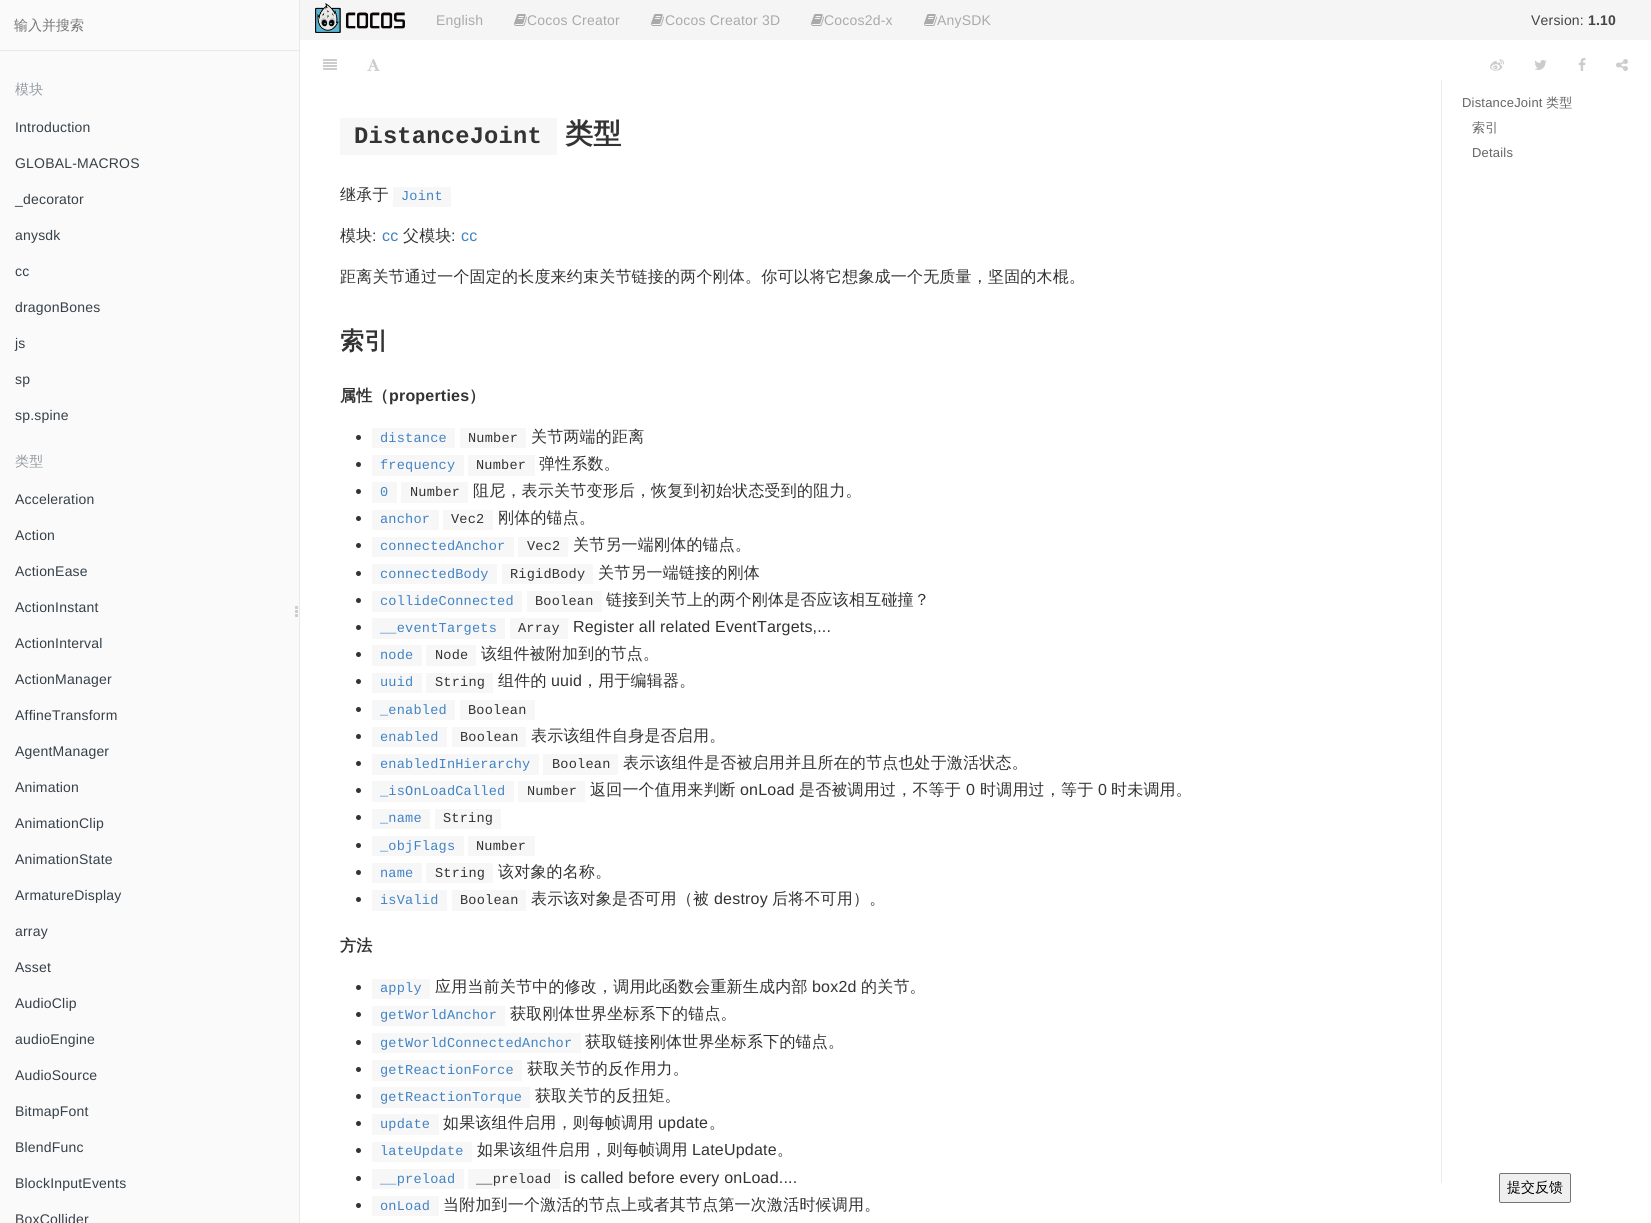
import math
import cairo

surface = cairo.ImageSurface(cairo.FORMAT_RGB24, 1651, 1223)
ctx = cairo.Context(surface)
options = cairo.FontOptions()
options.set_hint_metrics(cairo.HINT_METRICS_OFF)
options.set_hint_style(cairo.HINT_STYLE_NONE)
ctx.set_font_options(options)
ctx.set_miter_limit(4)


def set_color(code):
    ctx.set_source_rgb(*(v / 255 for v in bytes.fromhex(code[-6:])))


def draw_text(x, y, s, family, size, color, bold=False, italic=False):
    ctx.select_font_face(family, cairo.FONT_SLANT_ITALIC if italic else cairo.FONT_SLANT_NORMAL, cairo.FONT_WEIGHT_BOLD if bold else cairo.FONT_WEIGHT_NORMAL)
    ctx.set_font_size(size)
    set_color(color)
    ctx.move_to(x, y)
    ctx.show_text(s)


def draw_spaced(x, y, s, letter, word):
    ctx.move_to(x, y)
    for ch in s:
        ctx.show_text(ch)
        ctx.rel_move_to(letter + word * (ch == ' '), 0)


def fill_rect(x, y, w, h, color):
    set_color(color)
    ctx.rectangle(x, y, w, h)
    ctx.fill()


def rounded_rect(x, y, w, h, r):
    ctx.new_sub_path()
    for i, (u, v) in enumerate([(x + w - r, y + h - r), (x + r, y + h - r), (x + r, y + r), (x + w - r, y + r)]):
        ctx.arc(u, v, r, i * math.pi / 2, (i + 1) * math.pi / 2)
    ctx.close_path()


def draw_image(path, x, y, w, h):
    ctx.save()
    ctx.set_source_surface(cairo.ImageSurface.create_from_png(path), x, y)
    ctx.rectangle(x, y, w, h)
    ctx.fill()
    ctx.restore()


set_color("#ffffff")
ctx.paint()
fill_rect(0, 0, 299, 1223, "#fafafa")
fill_rect(299, 0, 1, 1223, "#e9e9e9")
fill_rect(0, 50, 299, 1, "#e9e9e9")
draw_text(14, 30, "输入并搜索", "WenQuanYi Zen Hei Medium", 14, "#757575")
set_color("#939da3")
draw_spaced(15, 94, "模块", 0.2, 0)
ctx.select_font_face("Liberation Sans")
set_color("#364049")
draw_spaced(15, 132, "Introduction", 0.2, 0)
draw_spaced(15, 168, "GLOBAL-MACROS", 0.2, 0)
draw_spaced(15, 204, "_decorator", 0.2, 0)
draw_spaced(15, 240, "anysdk", 0.2, 0)
draw_spaced(15, 276, "cc", 0.2, 0)
draw_spaced(15, 312, "dragonBones", 0.2, 0)
draw_spaced(15, 348, "js", 0.2, 0)
draw_spaced(15, 384, "sp", 0.2, 0)
draw_spaced(15, 420, "sp.spine", 0.2, 0)
ctx.select_font_face("WenQuanYi Zen Hei Medium")
set_color("#939da3")
draw_spaced(15, 466, "类型", 0.2, 0)
ctx.select_font_face("Liberation Sans")
set_color("#364049")
draw_spaced(15, 504, "Acceleration", 0.2, 0)
draw_spaced(15, 540, "Action", 0.2, 0)
draw_spaced(15, 576, "ActionEase", 0.2, 0)
draw_spaced(15, 612, "ActionInstant", 0.2, 0)
draw_spaced(15, 648, "ActionInterval", 0.2, 0)
draw_spaced(15, 684, "ActionManager", 0.2, 0)
draw_spaced(15, 720, "AffineTransform", 0.2, 0)
draw_spaced(15, 756, "AgentManager", 0.2, 0)
draw_spaced(15, 792, "Animation", 0.2, 0)
draw_spaced(15, 828, "AnimationClip", 0.2, 0)
draw_spaced(15, 864, "AnimationState", 0.2, 0)
draw_spaced(15, 900, "ArmatureDisplay", 0.2, 0)
draw_spaced(15, 936, "array", 0.2, 0)
draw_spaced(15, 972, "Asset", 0.2, 0)
draw_spaced(15, 1008, "AudioClip", 0.2, 0)
draw_spaced(15, 1044, "audioEngine", 0.2, 0)
draw_spaced(15, 1080, "AudioSource", 0.2, 0)
draw_spaced(15, 1116, "BitmapFont", 0.2, 0)
draw_spaced(15, 1152, "BlendFunc", 0.2, 0)
draw_spaced(15, 1188, "BlockInputEvents", 0.2, 0)
draw_spaced(15, 1224, "BoxCollider", 0.2, 0)
draw_image("assets/img1.png", 295, 606, 3, 11)
fill_rect(300, 0, 1351, 40, "#f5f5f5")
draw_image("assets/img2.png", 315, 3, 90, 30)
set_color("#aaaaaa")
draw_spaced(436, 25, "English", 0.2, 0)
draw_image("assets/img3.png", 514, 14, 13, 12)
draw_spaced(527, 25, "Cocos Creator", 0.2, 0)
draw_image("assets/img3.png", 651, 14, 13, 12)
draw_spaced(665, 25, "Cocos Creator 3D", 0.2, 0)
draw_image("assets/img3.png", 811, 14, 13, 12)
draw_spaced(824, 25, "Cocos2d-x", 0.2, 0)
draw_image("assets/img3.png", 924, 14, 13, 12)
draw_spaced(937, 25, "AnySDK", 0.2, 0)
set_color("#444444")
draw_spaced(1531, 25, "Version:", 0.2, 0)
ctx.select_font_face("Liberation Sans", cairo.FONT_SLANT_NORMAL, cairo.FONT_WEIGHT_BOLD)
draw_spaced(1588, 25, "1.10", 0.2, 0)
draw_image("assets/img4.png", 323, 59, 14, 11)
draw_image("assets/img5.png", 367, 59, 13, 12)
draw_image("assets/img6.png", 1490, 59, 14, 12)
draw_image("assets/img7.png", 1534, 60, 13, 10)
draw_image("assets/img8.png", 1578, 58, 8, 13)
draw_image("assets/img9.png", 1616, 59, 12, 12)
fill_rect(340, 118, 217, 37, "#f7f7f7")
ctx.select_font_face("Liberation Mono", cairo.FONT_SLANT_NORMAL, cairo.FONT_WEIGHT_BOLD)
ctx.set_font_size(23.75)
set_color("#333333")
draw_spaced(354, 143, "DistanceJoint", 0.2, 0)
ctx.select_font_face("WenQuanYi Zen Hei", cairo.FONT_SLANT_NORMAL, cairo.FONT_WEIGHT_BOLD)
ctx.set_font_size(28)
draw_spaced(565, 143, "类型", 0.2, 0)
ctx.select_font_face("WenQuanYi Zen Hei Medium")
ctx.set_font_size(16)
draw_spaced(340, 200, "继承于", 0.2, 0)
fill_rect(393, 187, 58, 20, "#f7f7f7")
ctx.select_font_face("Liberation Mono")
ctx.set_font_size(13.6)
set_color("#4183c4")
draw_spaced(401, 200, "Joint", 0.2, 0)
ctx.select_font_face("WenQuanYi Zen Hei Medium")
ctx.set_font_size(16)
set_color("#333333")
draw_spaced(340, 241, "模块", 0.2, 0)
ctx.select_font_face("Liberation Sans")
draw_spaced(372, 241, ":", 0.2, 0)
set_color("#4183c4")
draw_spaced(382, 241, "cc", 0.2, 0)
ctx.select_font_face("WenQuanYi Zen Hei Medium")
set_color("#333333")
draw_spaced(403, 241, "父模块", 0.2, 0)
ctx.select_font_face("Liberation Sans")
draw_spaced(451, 241, ":", 0.2, 0)
set_color("#4183c4")
draw_spaced(461, 241, "cc", 0.2, 0)
ctx.select_font_face("WenQuanYi Zen Hei Medium")
set_color("#333333")
draw_spaced(340, 282, "距离关节通过一个固定的长度来约束关节链接的两个刚体。你可以将它想象成一个无质量，坚固的木棍。", 0.2, 0)
ctx.select_font_face("WenQuanYi Zen Hei", cairo.FONT_SLANT_NORMAL, cairo.FONT_WEIGHT_BOLD)
ctx.set_font_size(24)
draw_spaced(340, 349, "索引", 0.2, 0)
ctx.set_font_size(16)
draw_spaced(340, 401, "属性（", 0.2, 0)
ctx.select_font_face("Liberation Sans", cairo.FONT_SLANT_NORMAL, cairo.FONT_WEIGHT_BOLD)
draw_spaced(389, 401, "properties", 0.2, 0)
ctx.select_font_face("WenQuanYi Zen Hei", cairo.FONT_SLANT_NORMAL, cairo.FONT_WEIGHT_BOLD)
draw_spaced(469, 401, "）", 0.2, 0)
ctx.new_path()
ctx.arc(358.5, 437.5, 2.5, 0, 2 * math.pi)
ctx.fill()
fill_rect(372, 428, 83, 20, "#f7f7f7")
ctx.select_font_face("Liberation Mono")
ctx.set_font_size(13.6)
set_color("#4183c4")
draw_spaced(380, 442, "distance", 0.2, 0)
fill_rect(460, 428, 66, 20, "#f7f7f7")
set_color("#333333")
draw_spaced(468, 442, "Number", 0.2, 0)
ctx.select_font_face("WenQuanYi Zen Hei Medium")
ctx.set_font_size(16)
draw_spaced(531, 442, "关节两端的距离", 0.2, 0)
ctx.new_path()
ctx.arc(358.5, 464.5, 2.5, 0, 2 * math.pi)
ctx.fill()
fill_rect(372, 455, 92, 21, "#f7f7f7")
ctx.select_font_face("Liberation Mono")
ctx.set_font_size(13.6)
set_color("#4183c4")
draw_spaced(380, 469, "frequency", 0.2, 0)
fill_rect(468, 455, 67, 21, "#f7f7f7")
set_color("#333333")
draw_spaced(476, 469, "Number", 0.2, 0)
ctx.select_font_face("WenQuanYi Zen Hei Medium")
ctx.set_font_size(16)
draw_spaced(539, 469, "弹性系数。", 0.2, 0)
ctx.new_path()
ctx.arc(358.5, 491.5, 2.5, 0, 2 * math.pi)
ctx.fill()
fill_rect(372, 482, 25, 21, "#f7f7f7")
ctx.select_font_face("Liberation Mono")
ctx.set_font_size(13.6)
set_color("#4183c4")
draw_spaced(380, 496, "0", 0.2, 0)
fill_rect(401, 482, 67, 21, "#f7f7f7")
set_color("#333333")
draw_spaced(410, 496, "Number", 0.2, 0)
ctx.select_font_face("WenQuanYi Zen Hei Medium")
ctx.set_font_size(16)
draw_spaced(473, 496, "阻尼，表示关节变形后，恢复到初始状态受到的阻力。", 0.2, 0)
ctx.new_path()
ctx.arc(358.5, 518.5, 2.5, 0, 2 * math.pi)
ctx.fill()
fill_rect(372, 510, 67, 20, "#f7f7f7")
ctx.select_font_face("Liberation Mono")
ctx.set_font_size(13.6)
set_color("#4183c4")
draw_spaced(380, 523, "anchor", 0.2, 0)
fill_rect(443, 510, 50, 20, "#f7f7f7")
set_color("#333333")
draw_spaced(451, 523, "Vec2", 0.2, 0)
ctx.select_font_face("WenQuanYi Zen Hei Medium")
ctx.set_font_size(16)
draw_spaced(498, 523, "刚体的锚点。", 0.2, 0)
ctx.new_path()
ctx.arc(358.5, 545.5, 2.5, 0, 2 * math.pi)
ctx.fill()
fill_rect(372, 537, 142, 20, "#f7f7f7")
ctx.select_font_face("Liberation Mono")
ctx.set_font_size(13.6)
set_color("#4183c4")
draw_spaced(380, 550, "connectedAnchor", 0.2, 0)
fill_rect(518, 537, 50, 20, "#f7f7f7")
set_color("#333333")
draw_spaced(527, 550, "Vec2", 0.2, 0)
ctx.select_font_face("WenQuanYi Zen Hei Medium")
ctx.set_font_size(16)
draw_spaced(573, 550, "关节另一端刚体的锚点。", 0.2, 0)
ctx.new_path()
ctx.arc(358.5, 573.5, 2.5, 0, 2 * math.pi)
ctx.fill()
fill_rect(372, 564, 125, 20, "#f7f7f7")
ctx.select_font_face("Liberation Mono")
ctx.set_font_size(13.6)
set_color("#4183c4")
draw_spaced(380, 578, "connectedBody", 0.2, 0)
fill_rect(502, 564, 91, 20, "#f7f7f7")
set_color("#333333")
draw_spaced(510, 578, "RigidBody", 0.2, 0)
ctx.select_font_face("WenQuanYi Zen Hei Medium")
ctx.set_font_size(16)
draw_spaced(598, 578, "关节另一端链接的刚体", 0.2, 0)
ctx.new_path()
ctx.arc(358.5, 600.5, 2.5, 0, 2 * math.pi)
ctx.fill()
fill_rect(372, 591, 150, 21, "#f7f7f7")
ctx.select_font_face("Liberation Mono")
ctx.set_font_size(13.6)
set_color("#4183c4")
draw_spaced(380, 605, "collideConnected", 0.2, 0)
fill_rect(527, 591, 75, 21, "#f7f7f7")
set_color("#333333")
draw_spaced(535, 605, "Boolean", 0.2, 0)
ctx.select_font_face("WenQuanYi Zen Hei Medium")
ctx.set_font_size(16)
draw_spaced(606, 605, "链接到关节上的两个刚体是否应该相互碰撞？", 0.2, 0)
ctx.new_path()
ctx.arc(358.5, 627.5, 2.5, 0, 2 * math.pi)
ctx.fill()
fill_rect(372, 618, 133, 21, "#f7f7f7")
ctx.select_font_face("Liberation Mono")
ctx.set_font_size(13.6)
set_color("#4183c4")
draw_spaced(380, 632, "__eventTargets", 0.2, 0)
fill_rect(510, 618, 58, 21, "#f7f7f7")
set_color("#333333")
draw_spaced(518, 632, "Array", 0.2, 0)
ctx.select_font_face("Liberation Sans")
ctx.set_font_size(16)
draw_spaced(573, 632, "Register all related EventTargets,...", 0.2, 0)
ctx.new_path()
ctx.arc(358.5, 654.5, 2.5, 0, 2 * math.pi)
ctx.fill()
fill_rect(372, 645, 50, 21, "#f7f7f7")
ctx.select_font_face("Liberation Mono")
ctx.set_font_size(13.6)
set_color("#4183c4")
draw_spaced(380, 659, "node", 0.2, 0)
fill_rect(426, 645, 50, 21, "#f7f7f7")
set_color("#333333")
draw_spaced(435, 659, "Node", 0.2, 0)
ctx.select_font_face("WenQuanYi Zen Hei Medium")
ctx.set_font_size(16)
draw_spaced(481, 659, "该组件被附加到的节点。", 0.2, 0)
ctx.new_path()
ctx.arc(358.5, 681.5, 2.5, 0, 2 * math.pi)
ctx.fill()
fill_rect(372, 673, 50, 20, "#f7f7f7")
ctx.select_font_face("Liberation Mono")
ctx.set_font_size(13.6)
set_color("#4183c4")
draw_spaced(380, 686, "uuid", 0.2, 0)
fill_rect(426, 673, 67, 20, "#f7f7f7")
set_color("#333333")
draw_spaced(435, 686, "String", 0.2, 0)
ctx.select_font_face("WenQuanYi Zen Hei Medium")
ctx.set_font_size(16)
draw_spaced(498, 686, "组件的", 0.2, 0)
ctx.select_font_face("Liberation Sans")
draw_spaced(551, 686, "uuid", 0.2, 0)
ctx.select_font_face("WenQuanYi Zen Hei Medium")
draw_spaced(582, 686, "，用于编辑器。", 0.2, 0)
ctx.new_path()
ctx.arc(358.5, 709.5, 2.5, 0, 2 * math.pi)
ctx.fill()
fill_rect(372, 700, 83, 20, "#f7f7f7")
ctx.select_font_face("Liberation Mono")
ctx.set_font_size(13.6)
set_color("#4183c4")
draw_spaced(380, 714, "_enabled", 0.2, 0)
fill_rect(460, 700, 75, 20, "#f7f7f7")
set_color("#333333")
draw_spaced(468, 714, "Boolean", 0.2, 0)
ctx.new_path()
ctx.arc(358.5, 736.5, 2.5, 0, 2 * math.pi)
ctx.fill()
fill_rect(372, 727, 75, 20, "#f7f7f7")
set_color("#4183c4")
draw_spaced(380, 741, "enabled", 0.2, 0)
fill_rect(452, 727, 74, 20, "#f7f7f7")
set_color("#333333")
draw_spaced(460, 741, "Boolean", 0.2, 0)
ctx.select_font_face("WenQuanYi Zen Hei Medium")
ctx.set_font_size(16)
draw_spaced(531, 741, "表示该组件自身是否启用。", 0.2, 0)
ctx.new_path()
ctx.arc(358.5, 763.5, 2.5, 0, 2 * math.pi)
ctx.fill()
fill_rect(372, 754, 167, 21, "#f7f7f7")
ctx.select_font_face("Liberation Mono")
ctx.set_font_size(13.6)
set_color("#4183c4")
draw_spaced(380, 768, "enabledInHierarchy", 0.2, 0)
fill_rect(543, 754, 75, 21, "#f7f7f7")
set_color("#333333")
draw_spaced(552, 768, "Boolean", 0.2, 0)
ctx.select_font_face("WenQuanYi Zen Hei Medium")
ctx.set_font_size(16)
draw_spaced(623, 768, "表示该组件是否被启用并且所在的节点也处于激活状态。", 0.2, 0)
ctx.new_path()
ctx.arc(358.5, 790.5, 2.5, 0, 2 * math.pi)
ctx.fill()
fill_rect(372, 781, 142, 21, "#f7f7f7")
ctx.select_font_face("Liberation Mono")
ctx.set_font_size(13.6)
set_color("#4183c4")
draw_spaced(380, 795, "_isOnLoadCalled", 0.2, 0)
fill_rect(518, 781, 67, 21, "#f7f7f7")
set_color("#333333")
draw_spaced(527, 795, "Number", 0.2, 0)
ctx.select_font_face("WenQuanYi Zen Hei Medium")
ctx.set_font_size(16)
draw_spaced(590, 795, "返回一个值用来判断", 0.2, 0)
ctx.select_font_face("Liberation Sans")
draw_spaced(740, 795, "onLoad", 0.2, 0)
ctx.select_font_face("WenQuanYi Zen Hei Medium")
draw_spaced(799, 795, "是否被调用过，不等于", 0.2, 0)
ctx.select_font_face("Liberation Sans")
draw_spaced(966, 795, "0", 0.2, 0)
ctx.select_font_face("WenQuanYi Zen Hei Medium")
draw_spaced(980, 795, "时调用过，等于", 0.2, 0)
ctx.select_font_face("Liberation Sans")
draw_spaced(1098, 795, "0", 0.2, 0)
ctx.select_font_face("WenQuanYi Zen Hei Medium")
draw_spaced(1111, 795, "时未调用。", 0.2, 0)
ctx.new_path()
ctx.arc(358.5, 817.5, 2.5, 0, 2 * math.pi)
ctx.fill()
fill_rect(372, 809, 58, 20, "#f7f7f7")
ctx.select_font_face("Liberation Mono")
ctx.set_font_size(13.6)
set_color("#4183c4")
draw_spaced(380, 822, "_name", 0.2, 0)
fill_rect(435, 809, 66, 20, "#f7f7f7")
set_color("#333333")
draw_spaced(443, 822, "String", 0.2, 0)
ctx.new_path()
ctx.arc(358.5, 845.5, 2.5, 0, 2 * math.pi)
ctx.fill()
fill_rect(372, 836, 92, 20, "#f7f7f7")
set_color("#4183c4")
draw_spaced(380, 850, "_objFlags", 0.2, 0)
fill_rect(468, 836, 67, 20, "#f7f7f7")
set_color("#333333")
draw_spaced(476, 850, "Number", 0.2, 0)
ctx.new_path()
ctx.arc(358.5, 872.5, 2.5, 0, 2 * math.pi)
ctx.fill()
fill_rect(372, 863, 50, 20, "#f7f7f7")
set_color("#4183c4")
draw_spaced(380, 877, "name", 0.2, 0)
fill_rect(426, 863, 67, 20, "#f7f7f7")
set_color("#333333")
draw_spaced(435, 877, "String", 0.2, 0)
ctx.select_font_face("WenQuanYi Zen Hei Medium")
ctx.set_font_size(16)
draw_spaced(498, 877, "该对象的名称。", 0.2, 0)
ctx.new_path()
ctx.arc(358.5, 899.5, 2.5, 0, 2 * math.pi)
ctx.fill()
fill_rect(372, 890, 75, 21, "#f7f7f7")
ctx.select_font_face("Liberation Mono")
ctx.set_font_size(13.6)
set_color("#4183c4")
draw_spaced(380, 904, "isValid", 0.2, 0)
fill_rect(452, 890, 74, 21, "#f7f7f7")
set_color("#333333")
draw_spaced(460, 904, "Boolean", 0.2, 0)
ctx.select_font_face("WenQuanYi Zen Hei Medium")
ctx.set_font_size(16)
draw_spaced(531, 904, "表示该对象是否可用（被", 0.2, 0)
ctx.select_font_face("Liberation Sans")
draw_spaced(714, 904, "destroy", 0.2, 0)
ctx.select_font_face("WenQuanYi Zen Hei Medium")
draw_spaced(772, 904, "后将不可用）。", 0.2, 0)
ctx.select_font_face("WenQuanYi Zen Hei", cairo.FONT_SLANT_NORMAL, cairo.FONT_WEIGHT_BOLD)
draw_spaced(340, 951, "方法", 0.2, 0)
ctx.new_path()
ctx.arc(358.5, 987.5, 2.5, 0, 2 * math.pi)
ctx.fill()
fill_rect(372, 979, 58, 20, "#f7f7f7")
ctx.select_font_face("Liberation Mono")
ctx.set_font_size(13.6)
set_color("#4183c4")
draw_spaced(380, 992, "apply", 0.2, 0)
ctx.select_font_face("WenQuanYi Zen Hei Medium")
ctx.set_font_size(16)
set_color("#333333")
draw_spaced(435, 992, "应用当前关节中的修改，调用此函数会重新生成内部", 0.2, 0)
ctx.select_font_face("Liberation Sans")
draw_spaced(812, 992, "box2d", 0.2, 0)
ctx.select_font_face("WenQuanYi Zen Hei Medium")
draw_spaced(861, 992, "的关节。", 0.2, 0)
ctx.new_path()
ctx.arc(358.5, 1014.5, 2.5, 0, 2 * math.pi)
ctx.fill()
fill_rect(372, 1006, 133, 20, "#f7f7f7")
ctx.select_font_face("Liberation Mono")
ctx.set_font_size(13.6)
set_color("#4183c4")
draw_spaced(380, 1019, "getWorldAnchor", 0.2, 0)
ctx.select_font_face("WenQuanYi Zen Hei Medium")
ctx.set_font_size(16)
set_color("#333333")
draw_spaced(510, 1019, "获取刚体世界坐标系下的锚点。", 0.2, 0)
ctx.new_path()
ctx.arc(358.5, 1042.5, 2.5, 0, 2 * math.pi)
ctx.fill()
fill_rect(372, 1033, 209, 20, "#f7f7f7")
ctx.select_font_face("Liberation Mono")
ctx.set_font_size(13.6)
set_color("#4183c4")
draw_spaced(380, 1047, "getWorldConnectedAnchor", 0.2, 0)
ctx.select_font_face("WenQuanYi Zen Hei Medium")
ctx.set_font_size(16)
set_color("#333333")
draw_spaced(585, 1047, "获取链接刚体世界坐标系下的锚点。", 0.2, 0)
ctx.new_path()
ctx.arc(358.5, 1069.5, 2.5, 0, 2 * math.pi)
ctx.fill()
fill_rect(372, 1060, 150, 21, "#f7f7f7")
ctx.select_font_face("Liberation Mono")
ctx.set_font_size(13.6)
set_color("#4183c4")
draw_spaced(380, 1074, "getReactionForce", 0.2, 0)
ctx.select_font_face("WenQuanYi Zen Hei Medium")
ctx.set_font_size(16)
set_color("#333333")
draw_spaced(527, 1074, "获取关节的反作用力。", 0.2, 0)
ctx.new_path()
ctx.arc(358.5, 1096.5, 2.5, 0, 2 * math.pi)
ctx.fill()
fill_rect(372, 1087, 158, 21, "#f7f7f7")
ctx.select_font_face("Liberation Mono")
ctx.set_font_size(13.6)
set_color("#4183c4")
draw_spaced(380, 1101, "getReactionTorque", 0.2, 0)
ctx.select_font_face("WenQuanYi Zen Hei Medium")
ctx.set_font_size(16)
set_color("#333333")
draw_spaced(535, 1101, "获取关节的反扭矩。", 0.2, 0)
ctx.new_path()
ctx.arc(358.5, 1123.5, 2.5, 0, 2 * math.pi)
ctx.fill()
fill_rect(372, 1114, 67, 21, "#f7f7f7")
ctx.select_font_face("Liberation Mono")
ctx.set_font_size(13.6)
set_color("#4183c4")
draw_spaced(380, 1128, "update", 0.2, 0)
ctx.select_font_face("WenQuanYi Zen Hei Medium")
ctx.set_font_size(16)
set_color("#333333")
draw_spaced(443, 1128, "如果该组件启用，则每帧调用", 0.2, 0)
ctx.select_font_face("Liberation Sans")
draw_spaced(658, 1128, "update", 0.2, 0)
ctx.select_font_face("WenQuanYi Zen Hei Medium")
draw_spaced(709, 1128, "。", 0.2, 0)
ctx.new_path()
ctx.arc(358.5, 1150.5, 2.5, 0, 2 * math.pi)
ctx.fill()
fill_rect(372, 1142, 100, 20, "#f7f7f7")
ctx.select_font_face("Liberation Mono")
ctx.set_font_size(13.6)
set_color("#4183c4")
draw_spaced(380, 1155, "lateUpdate", 0.2, 0)
ctx.select_font_face("WenQuanYi Zen Hei Medium")
ctx.set_font_size(16)
set_color("#333333")
draw_spaced(477, 1155, "如果该组件启用，则每帧调用", 0.2, 0)
ctx.select_font_face("Liberation Sans")
draw_spaced(692, 1155, "LateUpdate", 0.2, 0)
ctx.select_font_face("WenQuanYi Zen Hei Medium")
draw_spaced(777, 1155, "。", 0.2, 0)
ctx.new_path()
ctx.arc(358.5, 1178.5, 2.5, 0, 2 * math.pi)
ctx.fill()
fill_rect(372, 1169, 92, 20, "#f7f7f7")
ctx.select_font_face("Liberation Mono")
ctx.set_font_size(13.6)
set_color("#4183c4")
draw_spaced(380, 1183, "__preload", 0.2, 0)
fill_rect(468, 1169, 92, 20, "#f7f7f7")
set_color("#333333")
draw_spaced(476, 1183, "__preload", 0.2, 0)
ctx.select_font_face("Liberation Sans")
ctx.set_font_size(16)
draw_spaced(564, 1183, "is called before every onLoad....", 0.2, 0)
ctx.new_path()
ctx.arc(358.5, 1205.5, 2.5, 0, 2 * math.pi)
ctx.fill()
fill_rect(372, 1196, 67, 20, "#f7f7f7")
ctx.select_font_face("Liberation Mono")
ctx.set_font_size(13.6)
set_color("#4183c4")
draw_spaced(380, 1210, "onLoad", 0.2, 0)
ctx.select_font_face("WenQuanYi Zen Hei Medium")
ctx.set_font_size(16)
set_color("#333333")
draw_spaced(443, 1210, "当附加到一个激活的节点上或者其节点第一次激活时候调用。", 0.2, 0)
fill_rect(1441, 80, 1, 1103, "#ececec")
ctx.select_font_face("Liberation Sans")
ctx.set_font_size(13)
set_color("#656565")
draw_spaced(1462, 107, "DistanceJoint", 0.2, 0)
ctx.select_font_face("WenQuanYi Zen Hei Medium")
draw_spaced(1546, 107, "类型", 0.2, 0)
draw_spaced(1472, 132, "索引", 0.2, 0)
ctx.select_font_face("Liberation Sans")
draw_spaced(1472, 157, "Details", 0.2, 0)
set_color("#efefef")
rounded_rect(1499.5, 1173.5, 71, 29, 1.5)
ctx.fill_preserve()
set_color("#767676")
ctx.set_line_width(1)
ctx.stroke()
draw_text(1507, 1192, "提交反馈", "WenQuanYi Zen Hei Medium", 14, "#000000")
surface.write_to_png("output.png")
